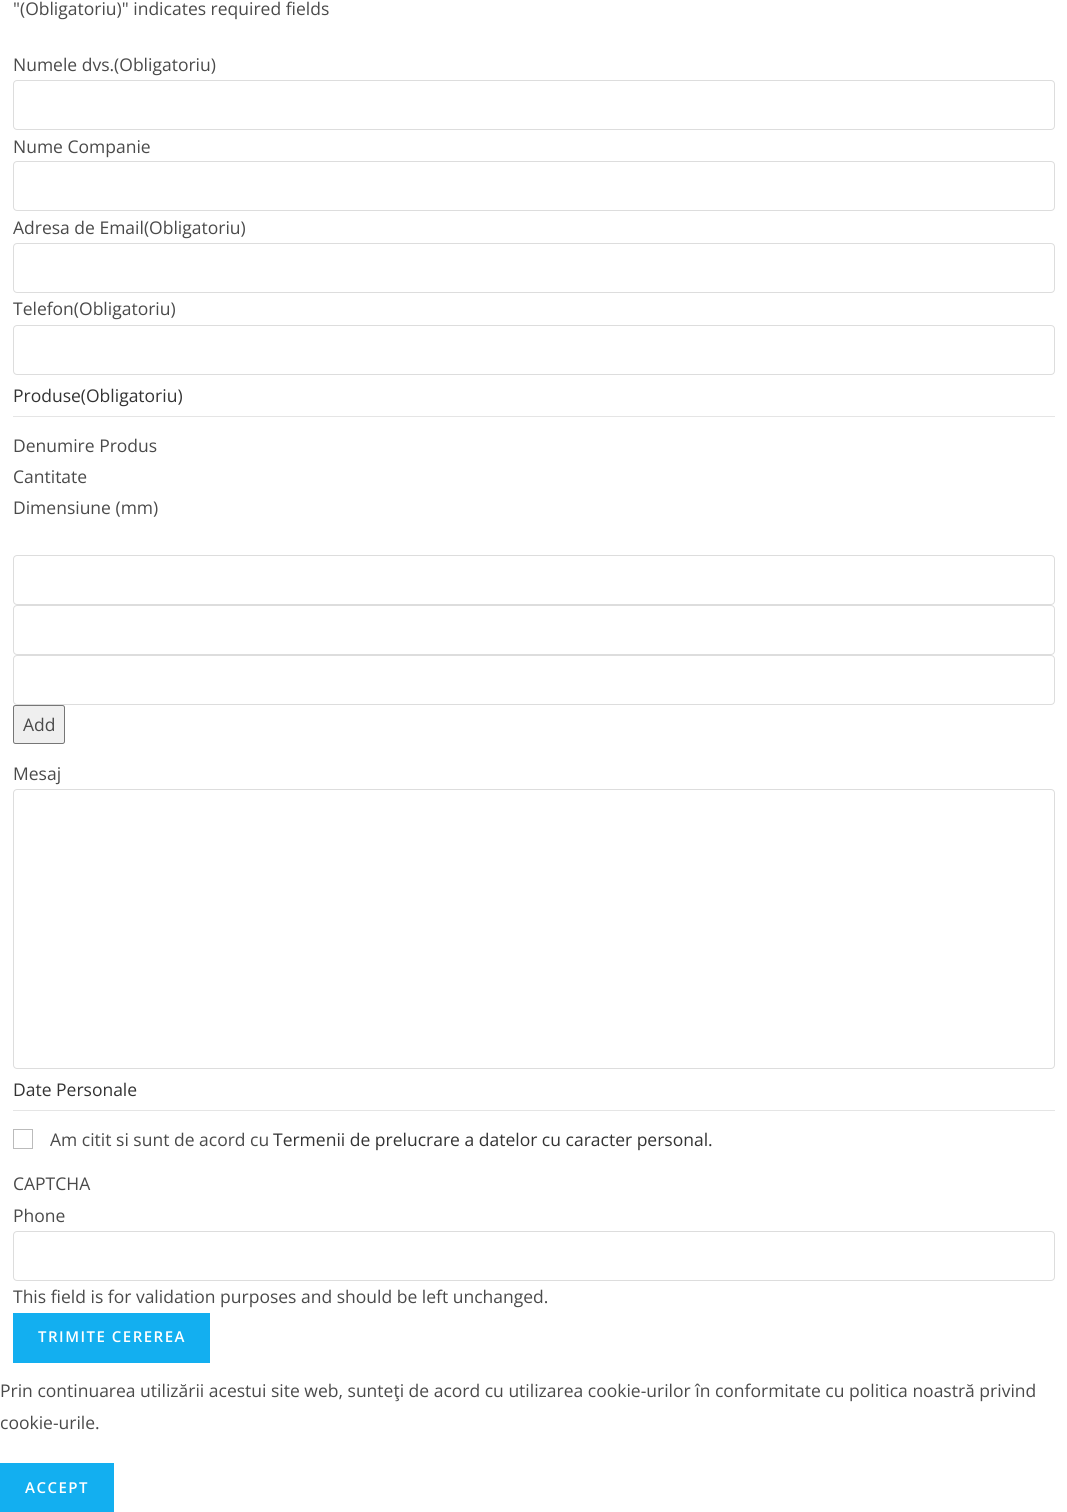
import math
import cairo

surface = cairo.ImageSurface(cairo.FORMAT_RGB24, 1067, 1512)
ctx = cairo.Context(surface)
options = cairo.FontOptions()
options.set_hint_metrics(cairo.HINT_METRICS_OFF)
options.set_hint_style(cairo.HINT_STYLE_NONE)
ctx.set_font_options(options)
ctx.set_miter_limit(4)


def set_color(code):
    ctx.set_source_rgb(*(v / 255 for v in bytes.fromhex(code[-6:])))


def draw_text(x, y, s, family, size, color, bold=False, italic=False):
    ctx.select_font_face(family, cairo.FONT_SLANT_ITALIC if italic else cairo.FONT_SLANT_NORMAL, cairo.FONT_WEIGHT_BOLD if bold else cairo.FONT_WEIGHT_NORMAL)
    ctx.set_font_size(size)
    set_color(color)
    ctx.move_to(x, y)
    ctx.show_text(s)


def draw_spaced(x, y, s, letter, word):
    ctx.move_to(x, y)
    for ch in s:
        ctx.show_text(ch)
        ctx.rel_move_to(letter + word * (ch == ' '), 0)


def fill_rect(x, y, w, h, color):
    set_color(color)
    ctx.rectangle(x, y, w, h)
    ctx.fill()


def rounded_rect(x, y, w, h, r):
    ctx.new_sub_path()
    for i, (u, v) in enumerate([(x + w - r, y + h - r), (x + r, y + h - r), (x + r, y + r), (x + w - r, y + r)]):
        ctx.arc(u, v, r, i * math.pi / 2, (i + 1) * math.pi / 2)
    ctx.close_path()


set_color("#ffffff")
ctx.paint()
draw_text(13, 15, "\"(Obligatoriu)\" indicates required fields", "Open Sans", 17.5, "#4a4a4a")
draw_text(13, 71, "Numele dvs.(Obligatoriu)", "Open Sans", 17.5, "#4a4a4a")
rounded_rect(13.5, 80.5, 1041, 49, 3.5)
set_color("#dddddd")
ctx.set_line_width(1)
ctx.stroke()
draw_text(13, 153, "Nume Companie", "Open Sans", 17.5, "#4a4a4a")
rounded_rect(13.5, 161.5, 1041, 49, 3.5)
set_color("#dddddd")
ctx.stroke()
draw_text(13, 234, "Adresa de Email(Obligatoriu)", "Open Sans", 17.5, "#4a4a4a")
rounded_rect(13.5, 243.5, 1041, 49, 3.5)
set_color("#dddddd")
ctx.stroke()
draw_text(13, 315, "Telefon(Obligatoriu)", "Open Sans", 17.5, "#4a4a4a")
rounded_rect(13.5, 325.5, 1041, 49, 3.5)
set_color("#dddddd")
ctx.stroke()
fill_rect(13, 416, 1042, 1, "#e5e5e5")
draw_text(13, 402, "Produse(Obligatoriu)", "Open Sans", 17.5, "#333333")
draw_text(13, 452, "Denumire Produs", "Open Sans", 17.5, "#4a4a4a")
draw_text(13, 483, "Cantitate", "Open Sans", 17.5, "#4a4a4a")
draw_text(13, 514, "Dimensiune (mm)", "Open Sans", 17.5, "#4a4a4a")
rounded_rect(13.5, 555.5, 1041, 49, 3.5)
set_color("#dddddd")
ctx.stroke()
rounded_rect(13.5, 605.5, 1041, 49, 3.5)
ctx.stroke()
rounded_rect(13.5, 655.5, 1041, 49, 3.5)
ctx.stroke()
set_color("#efefef")
rounded_rect(13.5, 705.5, 51, 38, 2)
ctx.fill_preserve()
set_color("#767676")
ctx.stroke()
draw_text(23, 731, "Add", "Open Sans", 17.5, "#4a4a4a")
draw_text(13, 780, "Mesaj", "Open Sans", 17.5, "#4a4a4a")
rounded_rect(13.5, 789.5, 1041, 279, 3.5)
set_color("#dddddd")
ctx.stroke()
fill_rect(13, 1110, 1042, 1, "#e5e5e5")
draw_text(13, 1096, "Date Personale", "Open Sans", 17.5, "#333333")
ctx.rectangle(13.5, 1129.5, 19, 19)
set_color("#bbbbbb")
ctx.stroke()
draw_text(50, 1146, "Am citit si sunt de acord cu", "Open Sans", 17.5, "#4a4a4a")
draw_text(273, 1146, "Termenii de prelucrare a datelor cu caracter personal.", "Open Sans", 17.5, "#333333")
draw_text(13, 1190, "CAPTCHA", "Open Sans", 17.5, "#4a4a4a")
draw_text(13, 1222, "Phone", "Open Sans", 17.5, "#4a4a4a")
rounded_rect(13.5, 1231.5, 1041, 49, 3.5)
set_color("#dddddd")
ctx.stroke()
draw_text(13, 1303, "This field is for validation purposes and should be left unchanged.", "Open Sans", 17.5, "#4a4a4a")
fill_rect(13, 1313, 197, 50, "#13aff0")
ctx.select_font_face("Open Sans SemiBold")
ctx.set_font_size(15)
set_color("#ffffff")
draw_spaced(38, 1342, "TRIMITE CEREREA", 1.5, 0)
draw_text(0, 1397, "Prin continuarea utilizării acestui site web, sunteţi de acord cu utilizarea cookie-urilor în conformitate cu politica noastră privind", "Open Sans", 17.5, "#4a4a4a")
draw_text(0, 1429, "cookie-urile.", "Open Sans", 17.5, "#4a4a4a")
fill_rect(0, 1463, 114, 49, "#13aff0")
ctx.select_font_face("Open Sans SemiBold")
ctx.set_font_size(15)
set_color("#ffffff")
draw_spaced(25, 1493, "ACCEPT", 1.5, 0)
surface.write_to_png("output.png")
